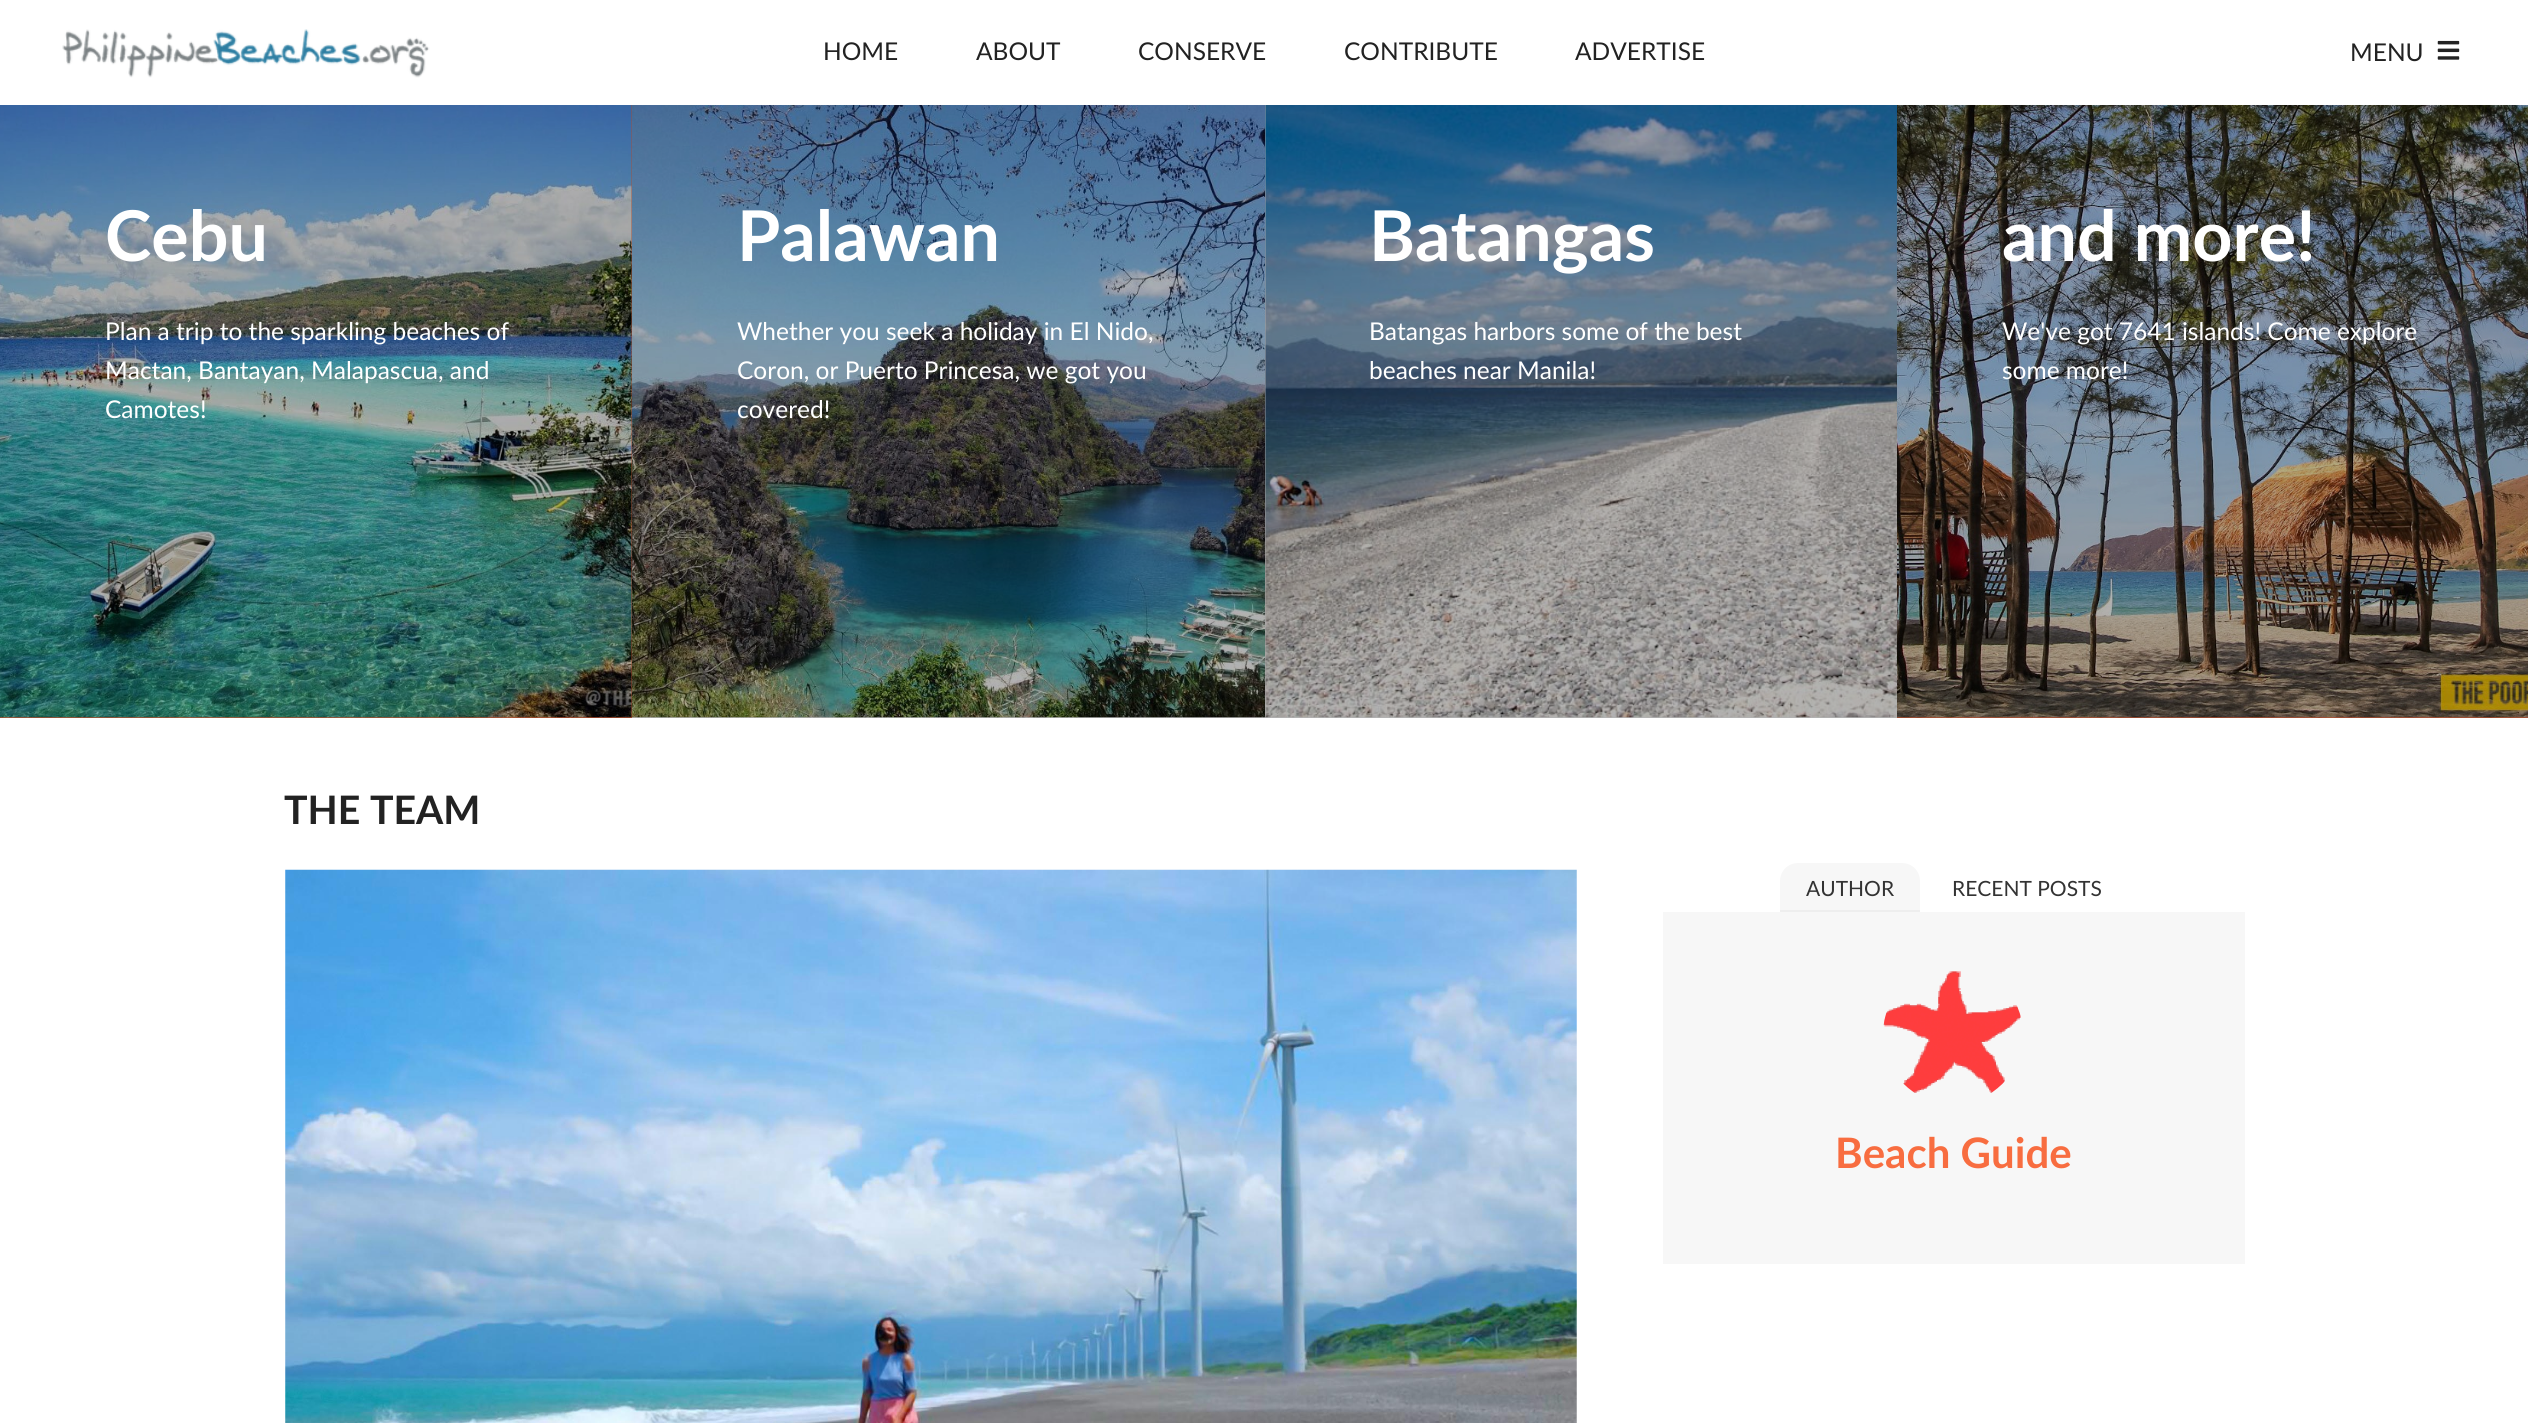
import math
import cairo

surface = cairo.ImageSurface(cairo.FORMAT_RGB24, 2528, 1423)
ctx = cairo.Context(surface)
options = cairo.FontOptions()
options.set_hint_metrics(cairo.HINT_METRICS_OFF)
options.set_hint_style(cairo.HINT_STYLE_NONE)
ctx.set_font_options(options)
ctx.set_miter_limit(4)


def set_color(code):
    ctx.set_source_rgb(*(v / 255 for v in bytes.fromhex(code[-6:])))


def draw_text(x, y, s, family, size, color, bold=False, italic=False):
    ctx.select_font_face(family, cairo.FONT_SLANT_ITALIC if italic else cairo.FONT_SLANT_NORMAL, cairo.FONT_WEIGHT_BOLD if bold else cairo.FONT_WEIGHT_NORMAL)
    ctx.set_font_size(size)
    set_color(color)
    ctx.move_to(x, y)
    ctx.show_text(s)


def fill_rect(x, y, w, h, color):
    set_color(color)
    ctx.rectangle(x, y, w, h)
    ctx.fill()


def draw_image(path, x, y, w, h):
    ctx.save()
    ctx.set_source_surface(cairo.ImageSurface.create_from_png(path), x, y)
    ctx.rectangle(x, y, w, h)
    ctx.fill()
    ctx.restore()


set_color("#ffffff")
ctx.paint()
fill_rect(632, 717, 633, 1, "#b3b3b3")
draw_image("assets/img1.png", 62, 29, 368, 49)
draw_text(823, 60, "HOME", "Lato", 24.5, "#222222")
draw_text(976, 60, "ABOUT", "Lato", 24.5, "#222222")
draw_text(1138, 60, "CONSERVE", "Lato", 24.5, "#222222")
draw_text(1344, 60, "CONTRIBUTE", "Lato", 24.5, "#222222")
draw_text(1575, 60, "ADVERTISE", "Lato", 24.5, "#222222")
draw_text(2350, 61, "MENU", "Lato", 24.5, "#222222")
draw_image("assets/img2.png", 2437, 40, 23, 20)
fill_rect(0, 105, 632, 613, "#f86d40")
draw_image("assets/img3.png", 0, 105, 632, 613)
draw_image("assets/img4.png", 631, 105, 635, 613)
ctx.set_source_rgba(0, 0, 0, 0.3)
ctx.rectangle(0, 105, 632, 613)
ctx.fill()
draw_text(105, 261, "Cebu", "Lato", 70, "#ffffff", bold=True)
draw_text(105, 340, "Plan a trip to the sparkling beaches of", "Lato", 24.5, "#ffffff")
draw_text(105, 379, "Mactan, Bantayan, Malapascua, and", "Lato", 24.5, "#ffffff")
draw_text(105, 418, "Camotes!", "Lato", 24.5, "#ffffff")
draw_text(737, 261, "Palawan", "Lato", 70, "#ffffff", bold=True)
draw_text(737, 340, "Whether you seek a holiday in El Nido,", "Lato", 24.5, "#ffffff")
draw_text(737, 379, "Coron, or Puerto Princesa, we got you", "Lato", 24.5, "#ffffff")
draw_text(737, 418, "covered!", "Lato", 24.5, "#ffffff")
draw_image("assets/img5.png", 1265, 105, 632, 613)
ctx.set_source_rgba(0, 0, 0, 0.3)
ctx.rectangle(1265, 105, 632, 613)
ctx.fill()
draw_text(1369, 261, "Batangas", "Lato", 70, "#ffffff", bold=True)
draw_text(1369, 340, "Batangas harbors some of the best", "Lato", 24.5, "#ffffff")
draw_text(1369, 379, "beaches near Manila!", "Lato", 24.5, "#ffffff")
fill_rect(1897, 717, 631, 1, "#ae4c2d")
draw_image("assets/img6.png", 1897, 105, 631, 613)
draw_text(2002, 261, "and more!", "Lato", 70, "#ffffff", bold=True)
draw_text(2002, 340, "We've got 7641 islands! Come explore", "Lato", 24.5, "#ffffff")
draw_text(2002, 379, "some more!", "Lato", 24.5, "#ffffff")
draw_text(284, 824, "THE TEAM", "Lato", 39.25, "#222222", bold=True)
draw_image("assets/img7.png", 285, 869, 1292, 554)
fill_rect(1780, 910, 140, 2, "#eeeeee")
set_color("#f7f7f7")
ctx.new_path()
ctx.move_to(1798, 863)
ctx.line_to(1902, 863)
ctx.curve_to(1912, 863, 1920, 871, 1920, 881)
ctx.line_to(1920, 910)
ctx.line_to(1780, 910)
ctx.line_to(1780, 881)
ctx.curve_to(1780, 871, 1788, 863, 1798, 863)
ctx.close_path()
ctx.fill()
draw_text(1806, 896, "AUTHOR", "Lato", 21, "#333333")
draw_text(1952, 896, "RECENT POSTS", "Lato", 21, "#333333")
fill_rect(1663, 912, 582, 352, "#f7f7f7")
draw_image("assets/img8.png", 1883, 971, 138, 122)
draw_text(1835, 1168, "Beach Guide", "Lato", 42, "#f86d40", bold=True)
surface.write_to_png("output.png")
